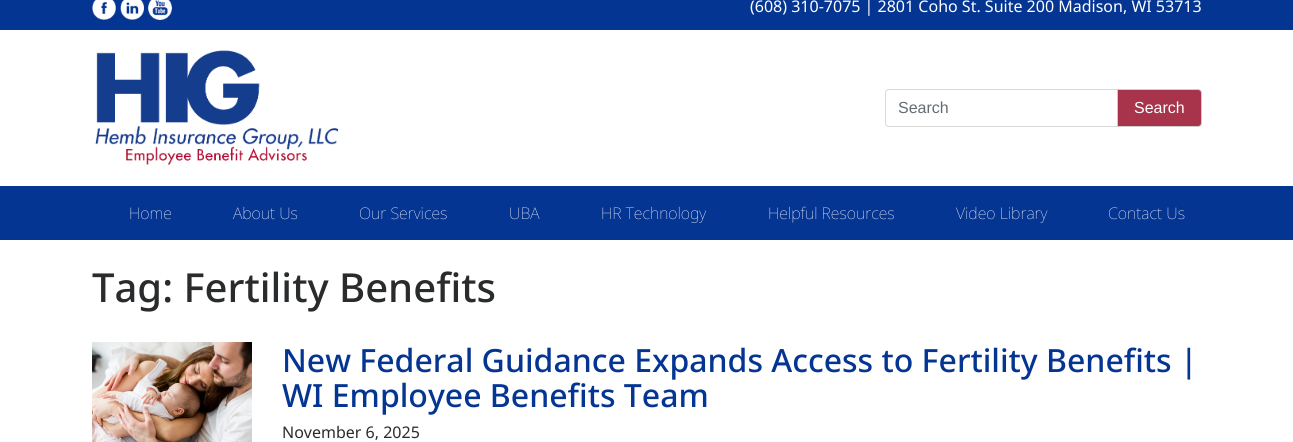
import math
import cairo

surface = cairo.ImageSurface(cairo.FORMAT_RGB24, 1293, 442)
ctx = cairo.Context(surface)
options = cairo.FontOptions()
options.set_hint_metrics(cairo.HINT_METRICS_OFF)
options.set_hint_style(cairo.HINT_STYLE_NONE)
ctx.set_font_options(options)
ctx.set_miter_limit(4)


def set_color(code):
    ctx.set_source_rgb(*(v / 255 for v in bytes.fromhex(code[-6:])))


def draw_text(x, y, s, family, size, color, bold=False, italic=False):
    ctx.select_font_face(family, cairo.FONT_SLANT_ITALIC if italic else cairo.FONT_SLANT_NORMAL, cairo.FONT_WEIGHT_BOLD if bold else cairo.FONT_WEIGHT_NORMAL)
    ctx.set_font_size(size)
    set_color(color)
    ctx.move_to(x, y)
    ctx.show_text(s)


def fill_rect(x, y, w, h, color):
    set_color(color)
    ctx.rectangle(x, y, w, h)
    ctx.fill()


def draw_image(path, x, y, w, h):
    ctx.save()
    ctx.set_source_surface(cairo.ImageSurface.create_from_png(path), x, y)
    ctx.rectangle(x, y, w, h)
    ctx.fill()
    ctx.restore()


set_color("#ffffff")
ctx.paint()
fill_rect(0, 0, 1293, 30, "#053593")
draw_image("assets/img1.png", 92, 0, 24, 20)
draw_image("assets/img2.png", 120, 0, 24, 20)
draw_image("assets/img3.png", 148, 0, 24, 20)
draw_text(750, 12, "(608) 310-7075 | 2801 Coho St. Suite 200 Madison, WI 53713", "Noto Sans", 16, "#ffffff")
draw_image("assets/img4.png", 95, 50, 244, 115)
ctx.new_path()
ctx.move_to(889, 89.5)
ctx.line_to(1117.5, 89.5)
ctx.line_to(1117.5, 126.5)
ctx.line_to(889, 126.5)
ctx.curve_to(887, 126.5, 885.5, 125, 885.5, 123)
ctx.line_to(885.5, 93)
ctx.curve_to(885.5, 91, 887, 89.5, 889, 89.5)
ctx.close_path()
set_color("#d9d9d9")
ctx.set_line_width(1)
ctx.stroke()
draw_text(898, 113, "Search", "Liberation Sans", 16, "#636c72")
set_color("#a8344c")
ctx.new_path()
ctx.move_to(1117.5, 89.5)
ctx.line_to(1198, 89.5)
ctx.curve_to(1200, 89.5, 1201.5, 91, 1201.5, 93)
ctx.line_to(1201.5, 123)
ctx.curve_to(1201.5, 125, 1200, 126.5, 1198, 126.5)
ctx.line_to(1117.5, 126.5)
ctx.close_path()
ctx.fill_preserve()
set_color("#cccccc")
ctx.stroke()
draw_text(1134, 113, "Search", "Liberation Sans", 16, "#ffffff")
fill_rect(0, 186, 1293, 54, "#053593")
draw_text(129, 219, "Home", "Noto Sans Thin", 16, "#ffffff")
draw_text(233, 219, "About Us", "Noto Sans Thin", 16, "#ffffff")
draw_text(359, 219, "Our Services", "Noto Sans Thin", 16, "#ffffff")
draw_text(509, 219, "UBA", "Noto Sans Thin", 16, "#ffffff")
draw_text(601, 219, "HR Technology", "Noto Sans Thin", 16, "#ffffff")
draw_text(768, 219, "Helpful Resources", "Noto Sans Thin", 16, "#ffffff")
draw_text(956, 219, "Video Library", "Noto Sans Thin", 16, "#ffffff")
draw_text(1108, 219, "Contact Us", "Noto Sans Thin", 16, "#ffffff")
draw_text(92, 302, "Tag: Fertility Benefits", "Noto Sans Medium", 40, "#292b2c")
draw_image("assets/img5.png", 92, 342, 160, 100)
draw_text(282, 372, "New Federal Guidance Expands Access to Fertility Benefits |", "Noto Sans Medium", 32, "#053593")
draw_text(282, 407, "WI Employee Benefits Team", "Noto Sans Medium", 32, "#053593")
draw_text(282, 438, "November 6, 2025", "Noto Sans", 16, "#292b2c")
surface.write_to_png("output.png")
